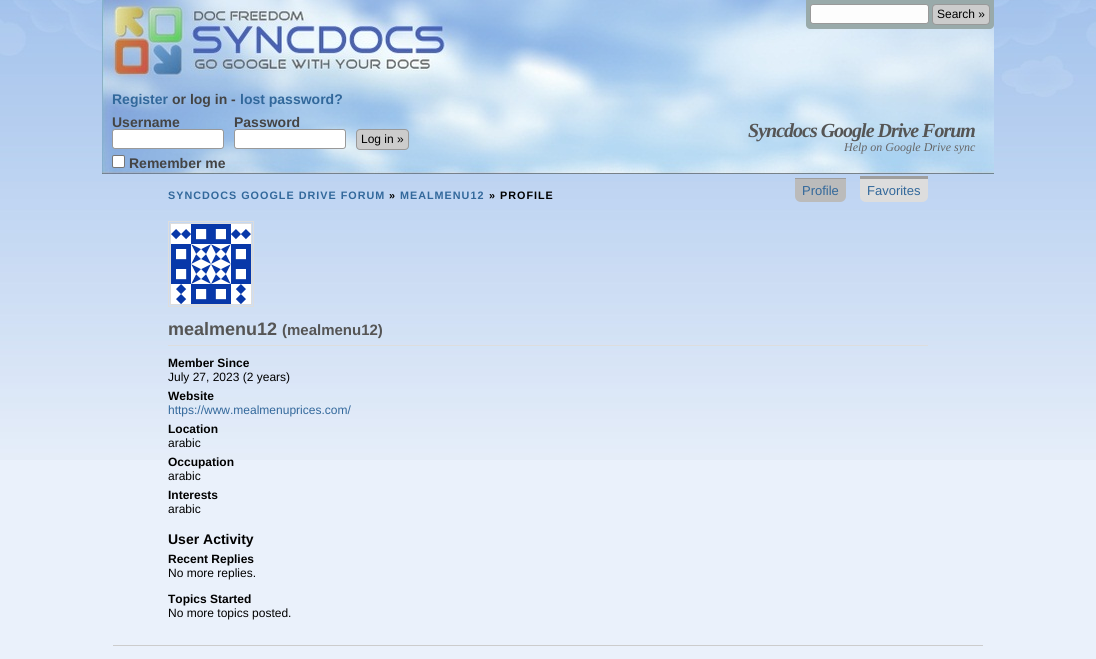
import math
import cairo

surface = cairo.ImageSurface(cairo.FORMAT_RGB24, 1096, 659)
ctx = cairo.Context(surface)
options = cairo.FontOptions()
options.set_hint_metrics(cairo.HINT_METRICS_OFF)
options.set_hint_style(cairo.HINT_STYLE_NONE)
ctx.set_font_options(options)
ctx.set_miter_limit(4)


def set_color(code):
    ctx.set_source_rgb(*(v / 255 for v in bytes.fromhex(code[-6:])))


def draw_text(x, y, s, family, size, color, bold=False, italic=False):
    ctx.select_font_face(family, cairo.FONT_SLANT_ITALIC if italic else cairo.FONT_SLANT_NORMAL, cairo.FONT_WEIGHT_BOLD if bold else cairo.FONT_WEIGHT_NORMAL)
    ctx.set_font_size(size)
    set_color(color)
    ctx.move_to(x, y)
    ctx.show_text(s)


def draw_spaced(x, y, s, letter, word):
    ctx.move_to(x, y)
    for ch in s:
        ctx.show_text(ch)
        ctx.rel_move_to(letter + word * (ch == ' '), 0)


def fill_rect(x, y, w, h, color):
    set_color(color)
    ctx.rectangle(x, y, w, h)
    ctx.fill()


def rounded_rect(x, y, w, h, r):
    ctx.new_sub_path()
    for i, (u, v) in enumerate([(x + w - r, y + h - r), (x + r, y + h - r), (x + r, y + r), (x + w - r, y + r)]):
        ctx.arc(u, v, r, i * math.pi / 2, (i + 1) * math.pi / 2)
    ctx.close_path()


def draw_image(path, x, y, w, h):
    ctx.save()
    ctx.set_source_surface(cairo.ImageSurface.create_from_png(path), x, y)
    ctx.rectangle(x, y, w, h)
    ctx.fill()
    ctx.restore()


set_color("#eaf1fb")
ctx.paint()
draw_image("assets/img1.png", 0, 0, 1096, 460)
draw_image("assets/img2.png", 102, 0, 892, 174)
set_color("#99aaaa")
ctx.new_path()
ctx.move_to(806, 0)
ctx.line_to(994, 0)
ctx.line_to(994, 25)
ctx.curve_to(994, 27, 992, 29, 990, 29)
ctx.line_to(810, 29)
ctx.curve_to(808, 29, 806, 27, 806, 25)
ctx.close_path()
ctx.fill()
set_color("#fdfdfd")
rounded_rect(810.5, 4.5, 118, 19, 2.5)
ctx.fill_preserve()
set_color("#999999")
ctx.set_line_width(1)
ctx.stroke()
set_color("#cccccc")
rounded_rect(932.5, 4.5, 57, 20, 3.5)
ctx.fill_preserve()
set_color("#999999")
ctx.stroke()
draw_text(937, 18, "Search »", "Liberation Sans", 12, "#000000")
draw_text(112, 104, "Register", "Liberation Sans", 14, "#32689b", bold=True)
draw_text(172, 104, "or log in -", "Liberation Sans", 14, "#444444", bold=True)
draw_text(240, 104, "lost password?", "Liberation Sans", 14, "#32689b", bold=True)
draw_text(112, 127, "Username", "Liberation Sans", 14, "#444444", bold=True)
set_color("#ffffff")
rounded_rect(112.5, 129.5, 111, 19, 2.5)
ctx.fill_preserve()
set_color("#999999")
ctx.stroke()
draw_text(234, 127, "Password", "Liberation Sans", 14, "#444444", bold=True)
set_color("#ffffff")
rounded_rect(234.5, 129.5, 111, 19, 2.5)
ctx.fill_preserve()
set_color("#999999")
ctx.stroke()
set_color("#cccccc")
rounded_rect(356.5, 129.5, 52, 20, 3.5)
ctx.fill_preserve()
set_color("#999999")
ctx.stroke()
draw_text(361, 143, "Log in »", "Liberation Sans", 12, "#000000")
set_color("#ffffff")
rounded_rect(112.5, 155.5, 12, 12, 1.5)
ctx.fill_preserve()
set_color("#767676")
ctx.stroke()
draw_text(129, 168, "Remember me", "Liberation Sans", 14, "#444444", bold=True)
ctx.select_font_face("Liberation Serif", cairo.FONT_SLANT_ITALIC, cairo.FONT_WEIGHT_BOLD)
ctx.set_font_size(20)
set_color("#555555")
draw_spaced(748, 137, "Syncdocs Google Drive Forum", -1, 0)
draw_text(844, 151, "Help on Google Drive sync", "Liberation Serif", 12, "#666666", italic=True)
ctx.select_font_face("Liberation Sans", cairo.FONT_SLANT_NORMAL, cairo.FONT_WEIGHT_BOLD)
ctx.set_font_size(10.8)
set_color("#32689b")
draw_spaced(168, 199, "SYNCDOCS GOOGLE DRIVE FORUM", 1, 0)
set_color("#000000")
draw_spaced(389, 199, "»", 1, 0)
set_color("#32689b")
draw_spaced(400, 199, "MEALMENU12", 1, 0)
set_color("#000000")
draw_spaced(489, 199, "» PROFILE", 1, 0)
set_color("#bbbbbb")
ctx.new_path()
ctx.move_to(795, 178)
ctx.line_to(846, 178)
ctx.line_to(846, 196)
ctx.curve_to(846, 199.5, 843.5, 202, 840, 202)
ctx.line_to(801, 202)
ctx.curve_to(797.5, 202, 795, 199.5, 795, 196)
ctx.close_path()
ctx.fill()
draw_text(802, 195, "Profile", "Liberation Sans", 13, "#32689b")
fill_rect(795, 178, 51, 1, "#9e9e9e")
set_color("#dddddd")
ctx.new_path()
ctx.move_to(860, 176)
ctx.line_to(928, 176)
ctx.line_to(928, 196)
ctx.curve_to(928, 199.5, 925.5, 202, 922, 202)
ctx.line_to(866, 202)
ctx.curve_to(862.5, 202, 860, 199.5, 860, 196)
ctx.close_path()
ctx.fill()
draw_text(867, 195, "Favorites", "Liberation Sans", 13, "#32689b")
fill_rect(860, 176, 68, 3, "#9e9e9e")
ctx.rectangle(168.5, 221.5, 85, 85)
set_color("#dddddd")
ctx.stroke()
ctx.rectangle(170.5, 223.5, 81, 81)
ctx.stroke()
draw_image("assets/img3.png", 171, 224, 80, 80)
fill_rect(168, 345, 760, 1, "#dddddd")
draw_text(168, 335, "mealmenu12", "Liberation Sans", 18, "#555555", bold=True)
draw_text(282, 335, "(mealmenu12)", "Liberation Sans", 15, "#555555", bold=True)
draw_text(168, 367, "Member Since", "Liberation Sans", 12, "#000000", bold=True)
draw_text(168, 381, "July 27, 2023 (2 years)", "Liberation Sans", 12, "#000000")
draw_text(168, 400, "Website", "Liberation Sans", 12, "#000000", bold=True)
draw_text(168, 414, "https://www.mealmenuprices.com/", "Liberation Sans", 12, "#32689b")
draw_text(168, 433, "Location", "Liberation Sans", 12, "#000000", bold=True)
draw_text(168, 447, "arabic", "Liberation Sans", 12, "#000000")
draw_text(168, 466, "Occupation", "Liberation Sans", 12, "#000000", bold=True)
draw_text(168, 480, "arabic", "Liberation Sans", 12, "#000000")
draw_text(168, 499, "Interests", "Liberation Sans", 12, "#000000", bold=True)
draw_text(168, 513, "arabic", "Liberation Sans", 12, "#000000")
draw_text(168, 544, "User Activity", "Liberation Sans", 14, "#000000", bold=True)
draw_text(168, 563, "Recent Replies", "Liberation Sans", 12, "#000000", bold=True)
draw_text(168, 577, "No more replies.", "Liberation Sans", 12, "#000000")
draw_text(168, 603, "Topics Started", "Liberation Sans", 12, "#000000", bold=True)
draw_text(168, 617, "No more topics posted.", "Liberation Sans", 12, "#000000")
fill_rect(113, 645, 870, 1, "#cccccc")
surface.write_to_png("output.png")
